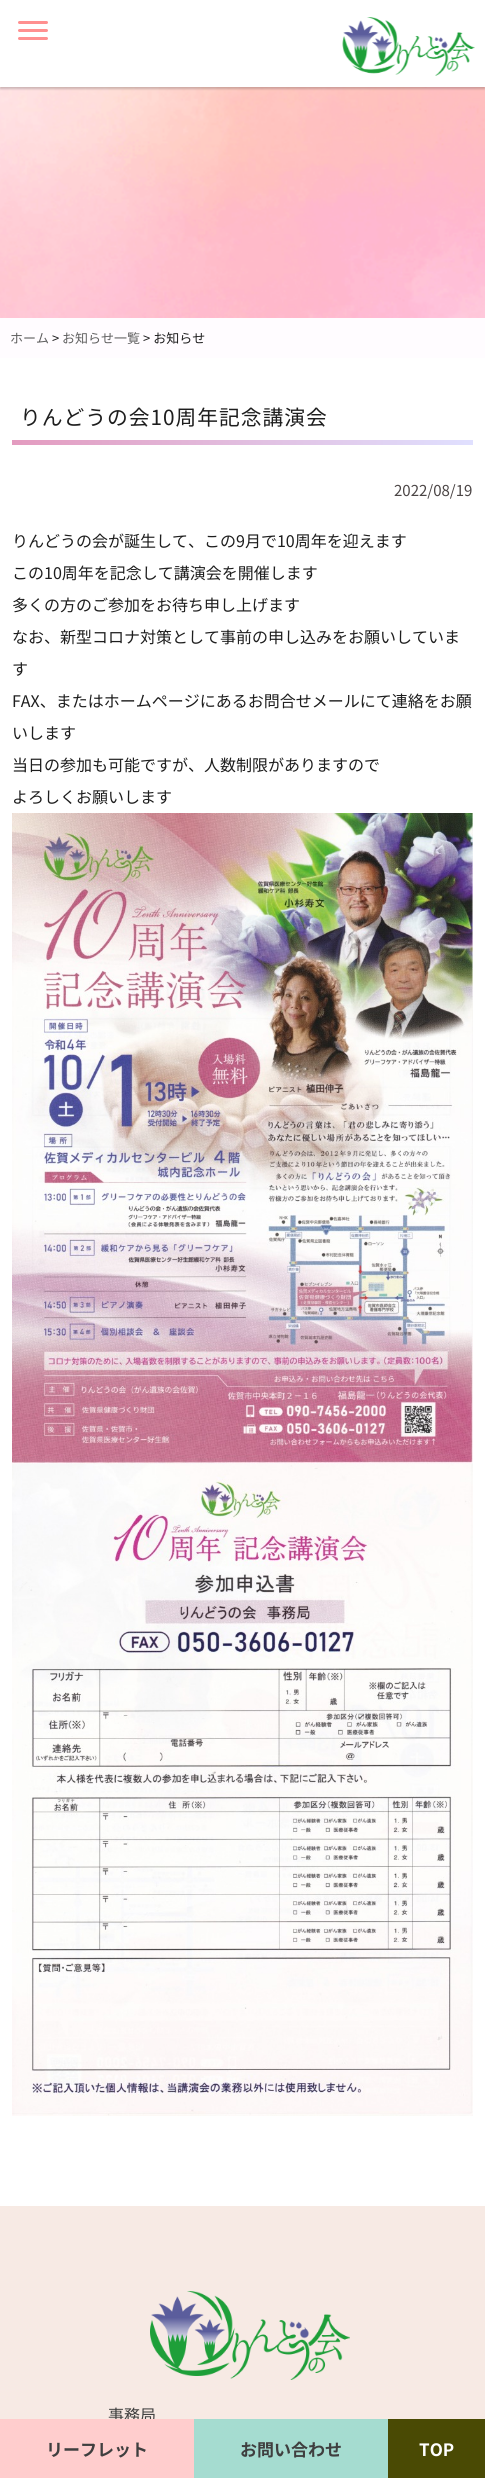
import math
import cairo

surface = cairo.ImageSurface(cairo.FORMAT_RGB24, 485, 2478)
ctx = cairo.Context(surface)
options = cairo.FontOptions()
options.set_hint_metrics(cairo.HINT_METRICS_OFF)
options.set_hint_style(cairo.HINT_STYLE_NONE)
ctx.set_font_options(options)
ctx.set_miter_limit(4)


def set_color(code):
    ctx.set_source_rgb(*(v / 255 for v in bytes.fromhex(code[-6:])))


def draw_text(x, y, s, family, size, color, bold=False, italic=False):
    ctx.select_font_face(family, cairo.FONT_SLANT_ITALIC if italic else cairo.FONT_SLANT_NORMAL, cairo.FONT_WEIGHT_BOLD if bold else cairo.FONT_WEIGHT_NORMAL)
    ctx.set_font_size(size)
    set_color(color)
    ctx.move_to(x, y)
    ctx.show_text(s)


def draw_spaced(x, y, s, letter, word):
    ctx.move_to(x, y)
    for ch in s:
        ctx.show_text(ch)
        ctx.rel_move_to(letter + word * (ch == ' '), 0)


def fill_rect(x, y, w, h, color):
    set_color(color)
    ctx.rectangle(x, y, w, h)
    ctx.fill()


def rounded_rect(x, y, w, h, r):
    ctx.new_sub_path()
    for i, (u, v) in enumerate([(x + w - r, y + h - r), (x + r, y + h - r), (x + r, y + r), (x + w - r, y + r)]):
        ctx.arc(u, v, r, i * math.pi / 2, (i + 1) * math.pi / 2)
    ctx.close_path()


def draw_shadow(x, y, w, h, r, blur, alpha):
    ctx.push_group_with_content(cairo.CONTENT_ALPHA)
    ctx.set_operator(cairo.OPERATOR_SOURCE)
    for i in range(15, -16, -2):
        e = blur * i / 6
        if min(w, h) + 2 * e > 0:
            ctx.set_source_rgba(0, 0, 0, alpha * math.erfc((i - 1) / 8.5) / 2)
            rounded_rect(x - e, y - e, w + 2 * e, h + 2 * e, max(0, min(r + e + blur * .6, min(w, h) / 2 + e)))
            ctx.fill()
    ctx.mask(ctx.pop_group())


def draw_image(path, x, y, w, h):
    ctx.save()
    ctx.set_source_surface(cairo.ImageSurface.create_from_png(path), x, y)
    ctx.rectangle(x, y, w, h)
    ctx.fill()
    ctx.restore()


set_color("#ffffff")
ctx.paint()
draw_image("assets/img2.png", 0, 87, 485, 231)
set_color("#000000")
draw_shadow(0, 2, 485, 87, 0, 1, 0.2)
fill_rect(0, 0, 485, 87, "#ffffff")
set_color("#ff9090")
rounded_rect(18, 21, 30, 3, 1.5)
ctx.fill()
rounded_rect(18, 29, 30, 3, 1.5)
ctx.fill()
rounded_rect(18, 37, 30, 3, 1.5)
ctx.fill()
draw_image("assets/img1.png", 342, 17, 133, 59)
fill_rect(0, 318, 485, 40, "#fffcff")
draw_text(10, 343, "ホーム", "Noto Sans JP", 13, "#606060")
draw_text(52, 343, ">", "Noto Sans JP", 13, "#1e1e1e")
draw_text(62, 343, "お知らせ一覧", "Noto Sans JP", 13, "#606060")
draw_text(143, 343, "> お知らせ", "Noto Sans JP", 13, "#1e1e1e")
ctx.set_font_size(20.75)
draw_spaced(20, 425, "りんどうの会10周年記念講演会", 1, 0)
gradient = cairo.LinearGradient(12, 443, 473, 443)
gradient.add_color_stop_rgba(0, 0.89, 0.608, 0.749, 1)
gradient.add_color_stop_rgba(1, 0.878, 0.878, 1, 1)
ctx.set_source(gradient)
ctx.rectangle(12, 440, 461, 5)
ctx.fill()
draw_text(394, 496, "2022/08/19", "Noto Sans JP", 15, "#4b4545")
draw_text(12, 547, "りんどうの会が誕生して、この9月で10周年を迎えます", "Noto Sans JP", 16, "#1e1e1e")
draw_text(12, 579, "この10周年を記念して講演会を開催します", "Noto Sans JP", 16, "#1e1e1e")
draw_text(12, 611, "多くの方のご参加をお待ち申し上げます", "Noto Sans JP", 16, "#1e1e1e")
draw_text(12, 643, "なお、新型コロナ対策として事前の申し込みをお願いしていま", "Noto Sans JP", 16, "#1e1e1e")
draw_text(12, 675, "す", "Noto Sans JP", 16, "#1e1e1e")
draw_text(12, 707, "FAX、またはホームページにあるお問合せメールにて連絡をお願", "Noto Sans JP", 16, "#1e1e1e")
draw_text(12, 739, "いします", "Noto Sans JP", 16, "#1e1e1e")
draw_text(12, 771, "当日の参加も可能ですが、人数制限がありますので", "Noto Sans JP", 16, "#1e1e1e")
draw_text(12, 803, "よろしくお願いします", "Noto Sans JP", 16, "#1e1e1e")
draw_image("assets/img3.png", 12, 813, 461, 651)
draw_image("assets/img4.png", 12, 1464, 461, 652)
fill_rect(0, 2206, 485, 213, "#f7eae4")
draw_image("assets/img5.png", 150, 2291, 200, 89)
draw_text(108, 2421, "事務局", "Noto Sans JP", 16, "#3f3f3f")
fill_rect(0, 2419, 194, 59, "#ffcdcd")
draw_text(46, 2456, "リーフレット", "Noto Sans JP", 17, "#3f3f3f", bold=True)
fill_rect(194, 2419, 194, 59, "#a5dcd0")
draw_text(240, 2456, "お問い合わせ", "Noto Sans JP", 17, "#3f3f3f", bold=True)
fill_rect(388, 2419, 97, 59, "#4a4a04")
draw_text(419, 2456, "TOP", "Noto Sans JP", 17, "#ffffff", bold=True)
surface.write_to_png("output.png")
